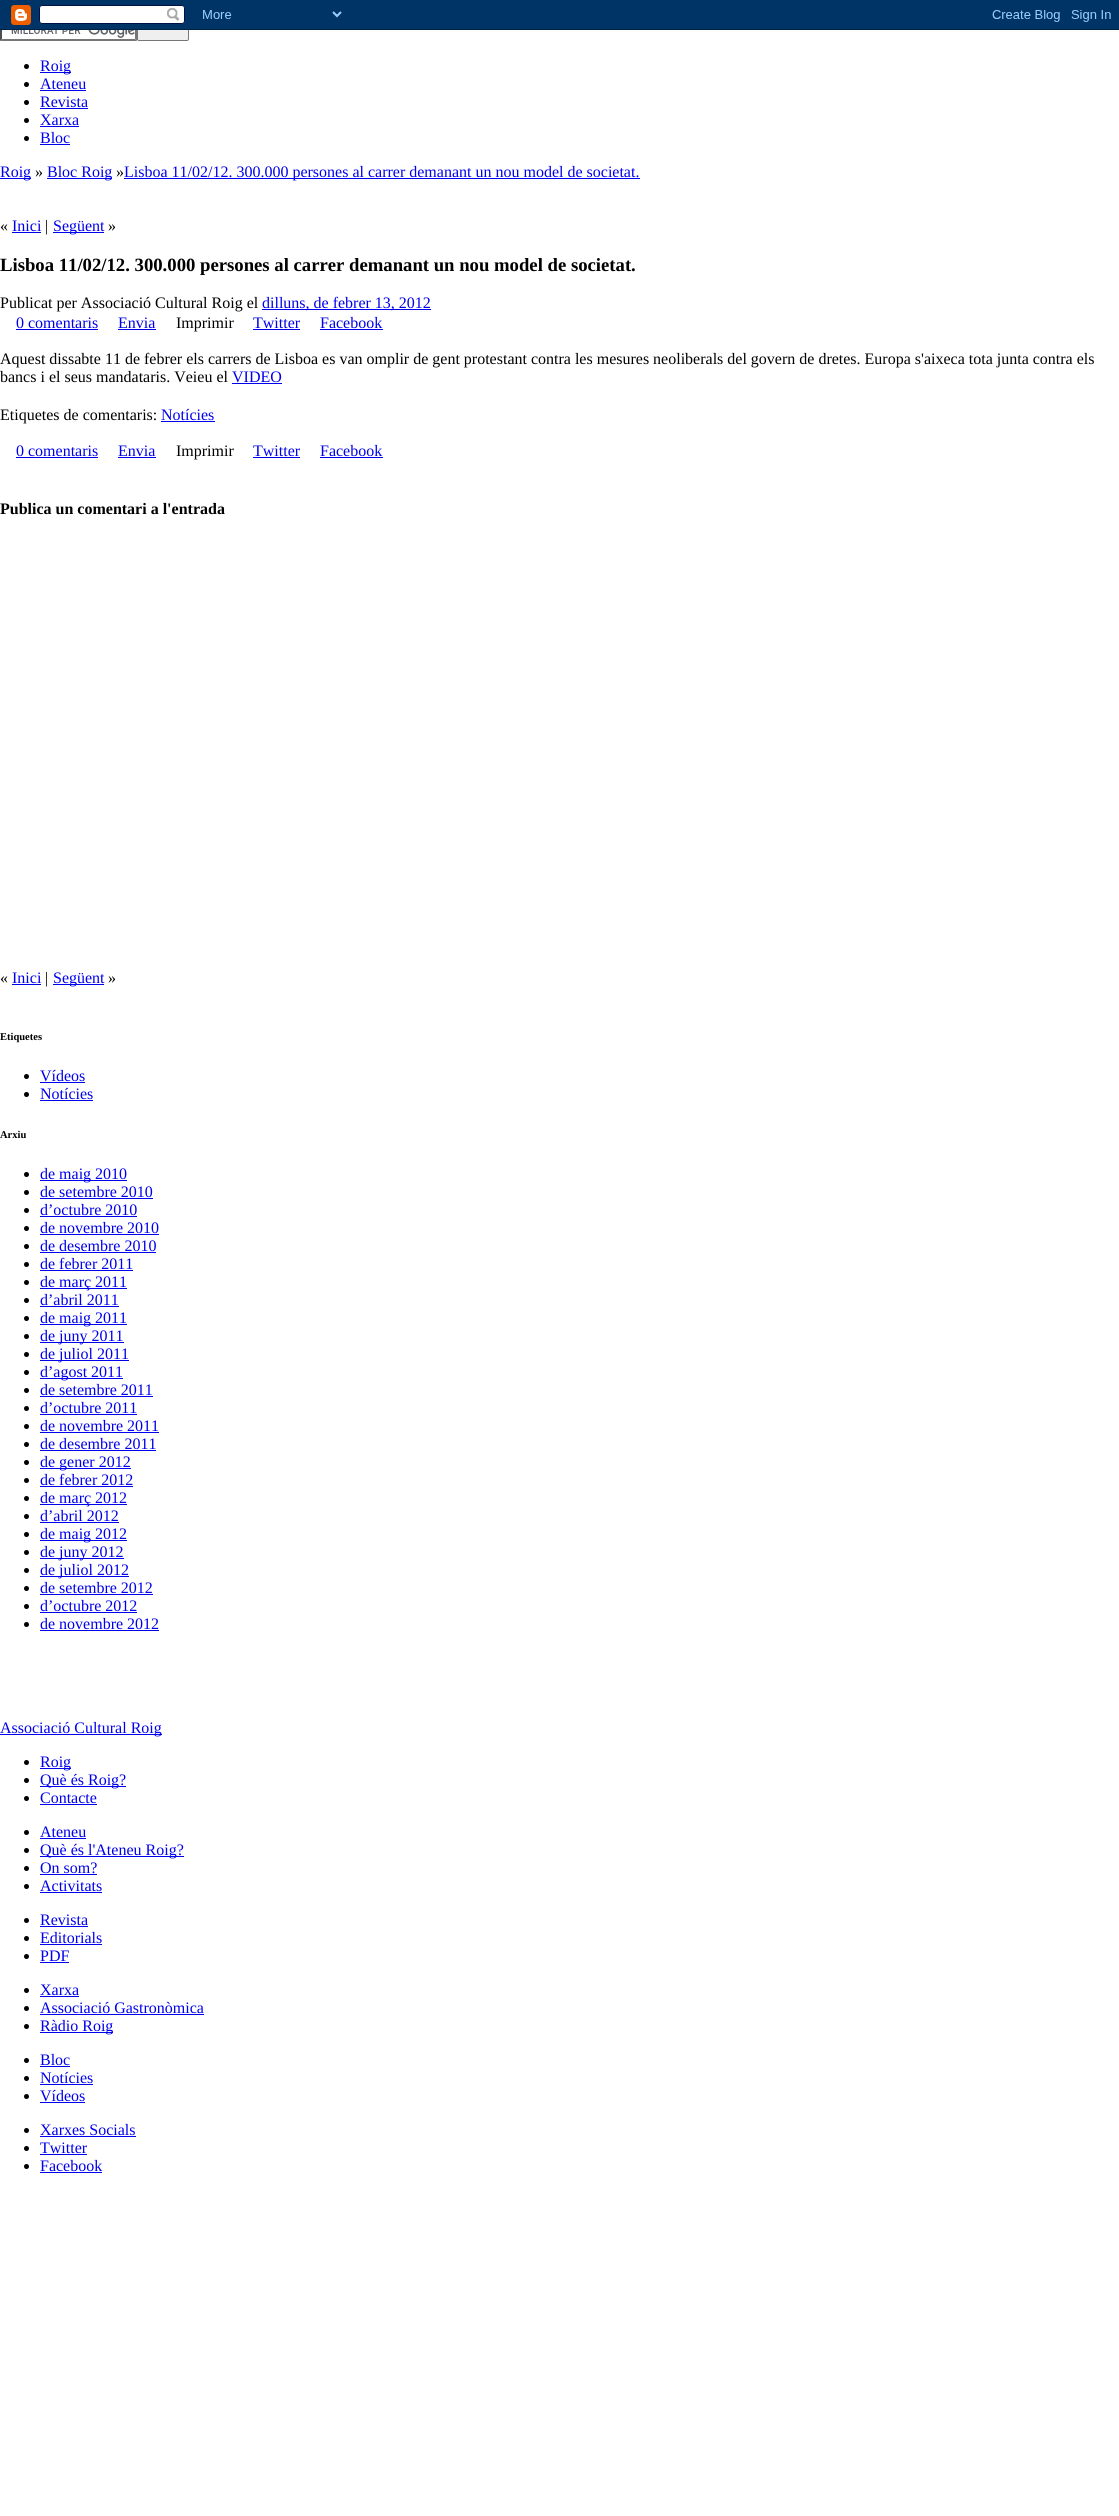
import math
import cairo

surface = cairo.ImageSurface(cairo.FORMAT_RGB24, 1119, 2516)
ctx = cairo.Context(surface)
options = cairo.FontOptions()
options.set_hint_metrics(cairo.HINT_METRICS_OFF)
options.set_hint_style(cairo.HINT_STYLE_NONE)
ctx.set_font_options(options)
ctx.set_miter_limit(4)


def set_color(code):
    ctx.set_source_rgb(*(v / 255 for v in bytes.fromhex(code[-6:])))


def draw_text(x, y, s, family, size, color, bold=False, italic=False):
    ctx.select_font_face(family, cairo.FONT_SLANT_ITALIC if italic else cairo.FONT_SLANT_NORMAL, cairo.FONT_WEIGHT_BOLD if bold else cairo.FONT_WEIGHT_NORMAL)
    ctx.set_font_size(size)
    set_color(color)
    ctx.move_to(x, y)
    ctx.show_text(s)


def fill_rect(x, y, w, h, color):
    set_color(color)
    ctx.rectangle(x, y, w, h)
    ctx.fill()


def rounded_rect(x, y, w, h, r):
    ctx.new_sub_path()
    for i, (u, v) in enumerate([(x + w - r, y + h - r), (x + r, y + h - r), (x + r, y + r), (x + w - r, y + r)]):
        ctx.arc(u, v, r, i * math.pi / 2, (i + 1) * math.pi / 2)
    ctx.close_path()


def draw_image(path, x, y, w, h):
    ctx.save()
    ctx.set_source_surface(cairo.ImageSurface.create_from_png(path), x, y)
    ctx.rectangle(x, y, w, h)
    ctx.fill()
    ctx.restore()


set_color("#ffffff")
ctx.paint()
set_color("#767676")
ctx.new_path()
ctx.move_to(137, 20)
ctx.line_to(137, 41)
ctx.line_to(135, 39)
ctx.line_to(135, 22)
ctx.close_path()
ctx.fill()
ctx.new_path()
ctx.move_to(137, 41)
ctx.line_to(0, 41)
ctx.line_to(2, 39)
ctx.line_to(135, 39)
ctx.close_path()
ctx.fill()
set_color("#4f4f4f")
ctx.new_path()
ctx.move_to(0, 41)
ctx.line_to(0, 20)
ctx.line_to(2, 22)
ctx.line_to(2, 39)
ctx.close_path()
ctx.fill()
set_color("#efefef")
rounded_rect(137.5, 20.5, 51, 20, 1.5)
ctx.fill_preserve()
set_color("#767676")
ctx.set_line_width(1)
ctx.stroke()
draw_image("assets/img1.png", 0, 0, 1119, 30)
draw_image("assets/img2.png", 11, 30, 124, 8)
set_color("#000000")
ctx.arc(26.5, 66.5, 2.5, 0, 2 * math.pi)
ctx.fill()
fill_rect(40, 72, 31, 1, "#0000ee")
draw_text(40, 71, "Roig", "Liberation Serif", 16, "#0000ee")
set_color("#000000")
ctx.new_path()
ctx.arc(26.5, 84.5, 2.5, 0, 2 * math.pi)
ctx.fill()
draw_text(40, 89, "Ateneu", "Liberation Serif", 16, "#0000ee")
fill_rect(40, 90, 46, 1, "#0000ee")
set_color("#000000")
ctx.new_path()
ctx.arc(26.5, 102.5, 2.5, 0, 2 * math.pi)
ctx.fill()
draw_text(40, 107, "Revista", "Liberation Serif", 16, "#0000ee")
fill_rect(40, 108, 48, 1, "#0000ee")
set_color("#000000")
ctx.new_path()
ctx.arc(26.5, 120.5, 2.5, 0, 2 * math.pi)
ctx.fill()
draw_text(40, 125, "Xarxa", "Liberation Serif", 16, "#0000ee")
fill_rect(40, 126, 39, 1, "#0000ee")
set_color("#000000")
ctx.new_path()
ctx.arc(26.5, 138.5, 2.5, 0, 2 * math.pi)
ctx.fill()
draw_text(40, 143, "Bloc", "Liberation Serif", 16, "#0000ee")
fill_rect(40, 144, 30, 1, "#0000ee")
fill_rect(0, 178, 31, 1, "#0000ee")
draw_text(0, 177, "Roig", "Liberation Serif", 16, "#0000ee")
draw_text(35, 177, "»", "Liberation Serif", 16, "#000000")
fill_rect(47, 178, 65, 1, "#0000ee")
draw_text(47, 177, "Bloc Roig", "Liberation Serif", 16, "#0000ee")
draw_text(116, 177, "»", "Liberation Serif", 16, "#000000")
fill_rect(124, 178, 516, 1, "#0000ee")
draw_text(124, 177, "Lisboa 11/02/12. 300.000 persones al carrer demanant un nou model de societat.", "Liberation Serif", 16, "#0000ee")
draw_text(0, 231, "«", "Liberation Serif", 16, "#000000")
draw_text(12, 231, "Inici", "Liberation Serif", 16, "#0000ee")
fill_rect(12, 232, 29, 1, "#0000ee")
draw_text(45, 231, "|", "Liberation Serif", 16, "#000000")
fill_rect(53, 232, 51, 1, "#0000ee")
draw_text(53, 231, "Següent", "Liberation Serif", 16, "#0000ee")
draw_text(108, 231, "»", "Liberation Serif", 16, "#000000")
draw_text(0, 271, "Lisboa 11/02/12. 300.000 persones al carrer demanant un nou model de societat.", "Liberation Serif", 18.7, "#000000", bold=True)
draw_text(0, 308, "Publicat per Associació Cultural Roig el", "Liberation Serif", 16, "#000000")
fill_rect(262, 309, 169, 1, "#0000ee")
draw_text(262, 308, "dilluns, de febrer 13, 2012", "Liberation Serif", 16, "#0000ee")
draw_text(16, 328, "0 comentaris", "Liberation Serif", 16, "#0000ee")
fill_rect(16, 329, 82, 1, "#0000ee")
draw_text(118, 328, "Envia", "Liberation Serif", 16, "#0000ee")
fill_rect(118, 329, 38, 1, "#0000ee")
draw_text(176, 328, "Imprimir", "Liberation Serif", 16, "#000000")
draw_text(253, 328, "Twitter", "Liberation Serif", 16, "#0000ee")
fill_rect(253, 329, 47, 1, "#0000ee")
draw_text(320, 328, "Facebook", "Liberation Serif", 16, "#0000ee")
fill_rect(320, 329, 63, 1, "#0000ee")
draw_text(0, 364, "Aquest dissabte 11 de febrer els carrers de Lisboa es van omplir de gent protestant contra les mesures neoliberals del govern de dretes. Europa s'aixeca tota junta contra els", "Liberation Serif", 16, "#000000")
draw_text(0, 382, "bancs i el seus mandataris. Veieu el", "Liberation Serif", 16, "#000000")
draw_text(232, 382, "VIDEO", "Liberation Serif", 16, "#0000ee")
fill_rect(232, 383, 50, 1, "#0000ee")
draw_text(0, 420, "Etiquetes de comentaris:", "Liberation Serif", 16, "#000000")
draw_text(161, 420, "Notícies", "Liberation Serif", 16, "#0000ee")
fill_rect(161, 421, 54, 1, "#0000ee")
draw_text(16, 456, "0 comentaris", "Liberation Serif", 16, "#0000ee")
fill_rect(16, 457, 82, 1, "#0000ee")
draw_text(118, 456, "Envia", "Liberation Serif", 16, "#0000ee")
fill_rect(118, 457, 38, 1, "#0000ee")
draw_text(176, 456, "Imprimir", "Liberation Serif", 16, "#000000")
draw_text(253, 456, "Twitter", "Liberation Serif", 16, "#0000ee")
fill_rect(253, 457, 47, 1, "#0000ee")
draw_text(320, 456, "Facebook", "Liberation Serif", 16, "#0000ee")
fill_rect(320, 457, 63, 1, "#0000ee")
draw_text(0, 514, "Publica un comentari a l'entrada", "Liberation Serif", 16, "#000000", bold=True)
draw_text(0, 983, "«", "Liberation Serif", 16, "#000000")
draw_text(12, 983, "Inici", "Liberation Serif", 16, "#0000ee")
fill_rect(12, 984, 29, 1, "#0000ee")
draw_text(45, 983, "|", "Liberation Serif", 16, "#000000")
fill_rect(53, 984, 51, 1, "#0000ee")
draw_text(53, 983, "Següent", "Liberation Serif", 16, "#0000ee")
draw_text(108, 983, "»", "Liberation Serif", 16, "#000000")
draw_text(0, 1040, "Etiquetes", "Liberation Serif", 10.5, "#000000", bold=True)
ctx.new_path()
ctx.arc(26.5, 1076.5, 2.5, 0, 2 * math.pi)
ctx.fill()
draw_text(40, 1081, "Vídeos", "Liberation Serif", 16, "#0000ee")
fill_rect(40, 1082, 45, 1, "#0000ee")
set_color("#000000")
ctx.new_path()
ctx.arc(26.5, 1094.5, 2.5, 0, 2 * math.pi)
ctx.fill()
draw_text(40, 1099, "Notícies", "Liberation Serif", 16, "#0000ee")
fill_rect(40, 1100, 53, 1, "#0000ee")
draw_text(0, 1138, "Arxiu", "Liberation Serif", 10.5, "#000000", bold=True)
ctx.new_path()
ctx.arc(26.5, 1174.5, 2.5, 0, 2 * math.pi)
ctx.fill()
fill_rect(40, 1180, 87, 1, "#0000ee")
draw_text(40, 1179, "de maig 2010", "Liberation Serif", 16, "#0000ee")
set_color("#000000")
ctx.new_path()
ctx.arc(26.5, 1192.5, 2.5, 0, 2 * math.pi)
ctx.fill()
draw_text(40, 1197, "de setembre 2010", "Liberation Serif", 16, "#0000ee")
fill_rect(40, 1198, 113, 1, "#0000ee")
set_color("#000000")
ctx.new_path()
ctx.arc(26.5, 1210.5, 2.5, 0, 2 * math.pi)
ctx.fill()
draw_text(40, 1215, "d’octubre 2010", "Liberation Serif", 16, "#0000ee")
fill_rect(40, 1216, 97, 1, "#0000ee")
set_color("#000000")
ctx.new_path()
ctx.arc(26.5, 1228.5, 2.5, 0, 2 * math.pi)
ctx.fill()
draw_text(40, 1233, "de novembre 2010", "Liberation Serif", 16, "#0000ee")
fill_rect(40, 1234, 119, 1, "#0000ee")
set_color("#000000")
ctx.new_path()
ctx.arc(26.5, 1246.5, 2.5, 0, 2 * math.pi)
ctx.fill()
draw_text(40, 1251, "de desembre 2010", "Liberation Serif", 16, "#0000ee")
fill_rect(40, 1252, 116, 1, "#0000ee")
set_color("#000000")
ctx.new_path()
ctx.arc(26.5, 1264.5, 2.5, 0, 2 * math.pi)
ctx.fill()
draw_text(40, 1269, "de febrer 2011", "Liberation Serif", 16, "#0000ee")
fill_rect(40, 1270, 93, 1, "#0000ee")
set_color("#000000")
ctx.new_path()
ctx.arc(26.5, 1282.5, 2.5, 0, 2 * math.pi)
ctx.fill()
fill_rect(40, 1288, 87, 1, "#0000ee")
draw_text(40, 1287, "de març 2011", "Liberation Serif", 16, "#0000ee")
set_color("#000000")
ctx.new_path()
ctx.arc(26.5, 1300.5, 2.5, 0, 2 * math.pi)
ctx.fill()
draw_text(40, 1305, "d’abril 2011", "Liberation Serif", 16, "#0000ee")
fill_rect(40, 1306, 79, 1, "#0000ee")
set_color("#000000")
ctx.new_path()
ctx.arc(26.5, 1318.5, 2.5, 0, 2 * math.pi)
ctx.fill()
fill_rect(40, 1324, 87, 1, "#0000ee")
draw_text(40, 1323, "de maig 2011", "Liberation Serif", 16, "#0000ee")
set_color("#000000")
ctx.new_path()
ctx.arc(26.5, 1336.5, 2.5, 0, 2 * math.pi)
ctx.fill()
fill_rect(40, 1342, 84, 1, "#0000ee")
draw_text(40, 1341, "de juny 2011", "Liberation Serif", 16, "#0000ee")
set_color("#000000")
ctx.new_path()
ctx.arc(26.5, 1354.5, 2.5, 0, 2 * math.pi)
ctx.fill()
fill_rect(40, 1360, 89, 1, "#0000ee")
draw_text(40, 1359, "de juliol 2011", "Liberation Serif", 16, "#0000ee")
set_color("#000000")
ctx.new_path()
ctx.arc(26.5, 1372.5, 2.5, 0, 2 * math.pi)
ctx.fill()
fill_rect(40, 1378, 83, 1, "#0000ee")
draw_text(40, 1377, "d’agost 2011", "Liberation Serif", 16, "#0000ee")
set_color("#000000")
ctx.new_path()
ctx.arc(26.5, 1390.5, 2.5, 0, 2 * math.pi)
ctx.fill()
draw_text(40, 1395, "de setembre 2011", "Liberation Serif", 16, "#0000ee")
fill_rect(40, 1396, 113, 1, "#0000ee")
set_color("#000000")
ctx.new_path()
ctx.arc(26.5, 1408.5, 2.5, 0, 2 * math.pi)
ctx.fill()
draw_text(40, 1413, "d’octubre 2011", "Liberation Serif", 16, "#0000ee")
fill_rect(40, 1414, 97, 1, "#0000ee")
set_color("#000000")
ctx.new_path()
ctx.arc(26.5, 1426.5, 2.5, 0, 2 * math.pi)
ctx.fill()
draw_text(40, 1431, "de novembre 2011", "Liberation Serif", 16, "#0000ee")
fill_rect(40, 1432, 119, 1, "#0000ee")
set_color("#000000")
ctx.new_path()
ctx.arc(26.5, 1444.5, 2.5, 0, 2 * math.pi)
ctx.fill()
draw_text(40, 1449, "de desembre 2011", "Liberation Serif", 16, "#0000ee")
fill_rect(40, 1450, 116, 1, "#0000ee")
set_color("#000000")
ctx.new_path()
ctx.arc(26.5, 1462.5, 2.5, 0, 2 * math.pi)
ctx.fill()
fill_rect(40, 1468, 91, 1, "#0000ee")
draw_text(40, 1467, "de gener 2012", "Liberation Serif", 16, "#0000ee")
set_color("#000000")
ctx.new_path()
ctx.arc(26.5, 1480.5, 2.5, 0, 2 * math.pi)
ctx.fill()
draw_text(40, 1485, "de febrer 2012", "Liberation Serif", 16, "#0000ee")
fill_rect(40, 1486, 93, 1, "#0000ee")
set_color("#000000")
ctx.new_path()
ctx.arc(26.5, 1498.5, 2.5, 0, 2 * math.pi)
ctx.fill()
fill_rect(40, 1504, 87, 1, "#0000ee")
draw_text(40, 1503, "de març 2012", "Liberation Serif", 16, "#0000ee")
set_color("#000000")
ctx.new_path()
ctx.arc(26.5, 1516.5, 2.5, 0, 2 * math.pi)
ctx.fill()
draw_text(40, 1521, "d’abril 2012", "Liberation Serif", 16, "#0000ee")
fill_rect(40, 1522, 79, 1, "#0000ee")
set_color("#000000")
ctx.new_path()
ctx.arc(26.5, 1534.5, 2.5, 0, 2 * math.pi)
ctx.fill()
fill_rect(40, 1540, 87, 1, "#0000ee")
draw_text(40, 1539, "de maig 2012", "Liberation Serif", 16, "#0000ee")
set_color("#000000")
ctx.new_path()
ctx.arc(26.5, 1552.5, 2.5, 0, 2 * math.pi)
ctx.fill()
fill_rect(40, 1558, 84, 1, "#0000ee")
draw_text(40, 1557, "de juny 2012", "Liberation Serif", 16, "#0000ee")
set_color("#000000")
ctx.new_path()
ctx.arc(26.5, 1570.5, 2.5, 0, 2 * math.pi)
ctx.fill()
fill_rect(40, 1576, 89, 1, "#0000ee")
draw_text(40, 1575, "de juliol 2012", "Liberation Serif", 16, "#0000ee")
set_color("#000000")
ctx.new_path()
ctx.arc(26.5, 1588.5, 2.5, 0, 2 * math.pi)
ctx.fill()
draw_text(40, 1593, "de setembre 2012", "Liberation Serif", 16, "#0000ee")
fill_rect(40, 1594, 113, 1, "#0000ee")
set_color("#000000")
ctx.new_path()
ctx.arc(26.5, 1606.5, 2.5, 0, 2 * math.pi)
ctx.fill()
draw_text(40, 1611, "d’octubre 2012", "Liberation Serif", 16, "#0000ee")
fill_rect(40, 1612, 97, 1, "#0000ee")
set_color("#000000")
ctx.new_path()
ctx.arc(26.5, 1624.5, 2.5, 0, 2 * math.pi)
ctx.fill()
draw_text(40, 1629, "de novembre 2012", "Liberation Serif", 16, "#0000ee")
fill_rect(40, 1630, 119, 1, "#0000ee")
fill_rect(0, 1734, 162, 1, "#0000ee")
draw_text(0, 1733, "Associació Cultural Roig", "Liberation Serif", 16, "#0000ee")
set_color("#000000")
ctx.new_path()
ctx.arc(26.5, 1762.5, 2.5, 0, 2 * math.pi)
ctx.fill()
fill_rect(40, 1768, 31, 1, "#0000ee")
draw_text(40, 1767, "Roig", "Liberation Serif", 16, "#0000ee")
set_color("#000000")
ctx.new_path()
ctx.arc(26.5, 1780.5, 2.5, 0, 2 * math.pi)
ctx.fill()
fill_rect(40, 1786, 86, 1, "#0000ee")
draw_text(40, 1785, "Què és Roig?", "Liberation Serif", 16, "#0000ee")
set_color("#000000")
ctx.new_path()
ctx.arc(26.5, 1798.5, 2.5, 0, 2 * math.pi)
ctx.fill()
draw_text(40, 1803, "Contacte", "Liberation Serif", 16, "#0000ee")
fill_rect(40, 1804, 57, 1, "#0000ee")
set_color("#000000")
ctx.new_path()
ctx.arc(26.5, 1832.5, 2.5, 0, 2 * math.pi)
ctx.fill()
draw_text(40, 1837, "Ateneu", "Liberation Serif", 16, "#0000ee")
fill_rect(40, 1838, 46, 1, "#0000ee")
set_color("#000000")
ctx.new_path()
ctx.arc(26.5, 1850.5, 2.5, 0, 2 * math.pi)
ctx.fill()
fill_rect(40, 1856, 144, 1, "#0000ee")
draw_text(40, 1855, "Què és l'Ateneu Roig?", "Liberation Serif", 16, "#0000ee")
set_color("#000000")
ctx.new_path()
ctx.arc(26.5, 1868.5, 2.5, 0, 2 * math.pi)
ctx.fill()
draw_text(40, 1873, "On som?", "Liberation Serif", 16, "#0000ee")
fill_rect(40, 1874, 57, 1, "#0000ee")
set_color("#000000")
ctx.new_path()
ctx.arc(26.5, 1886.5, 2.5, 0, 2 * math.pi)
ctx.fill()
draw_text(40, 1891, "Activitats", "Liberation Serif", 16, "#0000ee")
fill_rect(40, 1892, 62, 1, "#0000ee")
set_color("#000000")
ctx.new_path()
ctx.arc(26.5, 1920.5, 2.5, 0, 2 * math.pi)
ctx.fill()
draw_text(40, 1925, "Revista", "Liberation Serif", 16, "#0000ee")
fill_rect(40, 1926, 48, 1, "#0000ee")
set_color("#000000")
ctx.new_path()
ctx.arc(26.5, 1938.5, 2.5, 0, 2 * math.pi)
ctx.fill()
draw_text(40, 1943, "Editorials", "Liberation Serif", 16, "#0000ee")
fill_rect(40, 1944, 62, 1, "#0000ee")
set_color("#000000")
ctx.new_path()
ctx.arc(26.5, 1956.5, 2.5, 0, 2 * math.pi)
ctx.fill()
draw_text(40, 1961, "PDF", "Liberation Serif", 16, "#0000ee")
fill_rect(40, 1962, 29, 1, "#0000ee")
set_color("#000000")
ctx.new_path()
ctx.arc(26.5, 1990.5, 2.5, 0, 2 * math.pi)
ctx.fill()
draw_text(40, 1995, "Xarxa", "Liberation Serif", 16, "#0000ee")
fill_rect(40, 1996, 39, 1, "#0000ee")
set_color("#000000")
ctx.new_path()
ctx.arc(26.5, 2008.5, 2.5, 0, 2 * math.pi)
ctx.fill()
draw_text(40, 2013, "Associació Gastronòmica", "Liberation Serif", 16, "#0000ee")
fill_rect(40, 2014, 164, 1, "#0000ee")
set_color("#000000")
ctx.new_path()
ctx.arc(26.5, 2026.5, 2.5, 0, 2 * math.pi)
ctx.fill()
fill_rect(40, 2032, 73, 1, "#0000ee")
draw_text(40, 2031, "Ràdio Roig", "Liberation Serif", 16, "#0000ee")
set_color("#000000")
ctx.new_path()
ctx.arc(26.5, 2060.5, 2.5, 0, 2 * math.pi)
ctx.fill()
draw_text(40, 2065, "Bloc", "Liberation Serif", 16, "#0000ee")
fill_rect(40, 2066, 30, 1, "#0000ee")
set_color("#000000")
ctx.new_path()
ctx.arc(26.5, 2078.5, 2.5, 0, 2 * math.pi)
ctx.fill()
draw_text(40, 2083, "Notícies", "Liberation Serif", 16, "#0000ee")
fill_rect(40, 2084, 53, 1, "#0000ee")
set_color("#000000")
ctx.new_path()
ctx.arc(26.5, 2096.5, 2.5, 0, 2 * math.pi)
ctx.fill()
draw_text(40, 2101, "Vídeos", "Liberation Serif", 16, "#0000ee")
fill_rect(40, 2102, 45, 1, "#0000ee")
set_color("#000000")
ctx.new_path()
ctx.arc(26.5, 2130.5, 2.5, 0, 2 * math.pi)
ctx.fill()
draw_text(40, 2135, "Xarxes Socials", "Liberation Serif", 16, "#0000ee")
fill_rect(40, 2136, 96, 1, "#0000ee")
set_color("#000000")
ctx.new_path()
ctx.arc(26.5, 2148.5, 2.5, 0, 2 * math.pi)
ctx.fill()
draw_text(40, 2153, "Twitter", "Liberation Serif", 16, "#0000ee")
fill_rect(40, 2154, 47, 1, "#0000ee")
set_color("#000000")
ctx.new_path()
ctx.arc(26.5, 2166.5, 2.5, 0, 2 * math.pi)
ctx.fill()
draw_text(40, 2171, "Facebook", "Liberation Serif", 16, "#0000ee")
fill_rect(40, 2172, 62, 1, "#0000ee")
surface.write_to_png("output.png")
